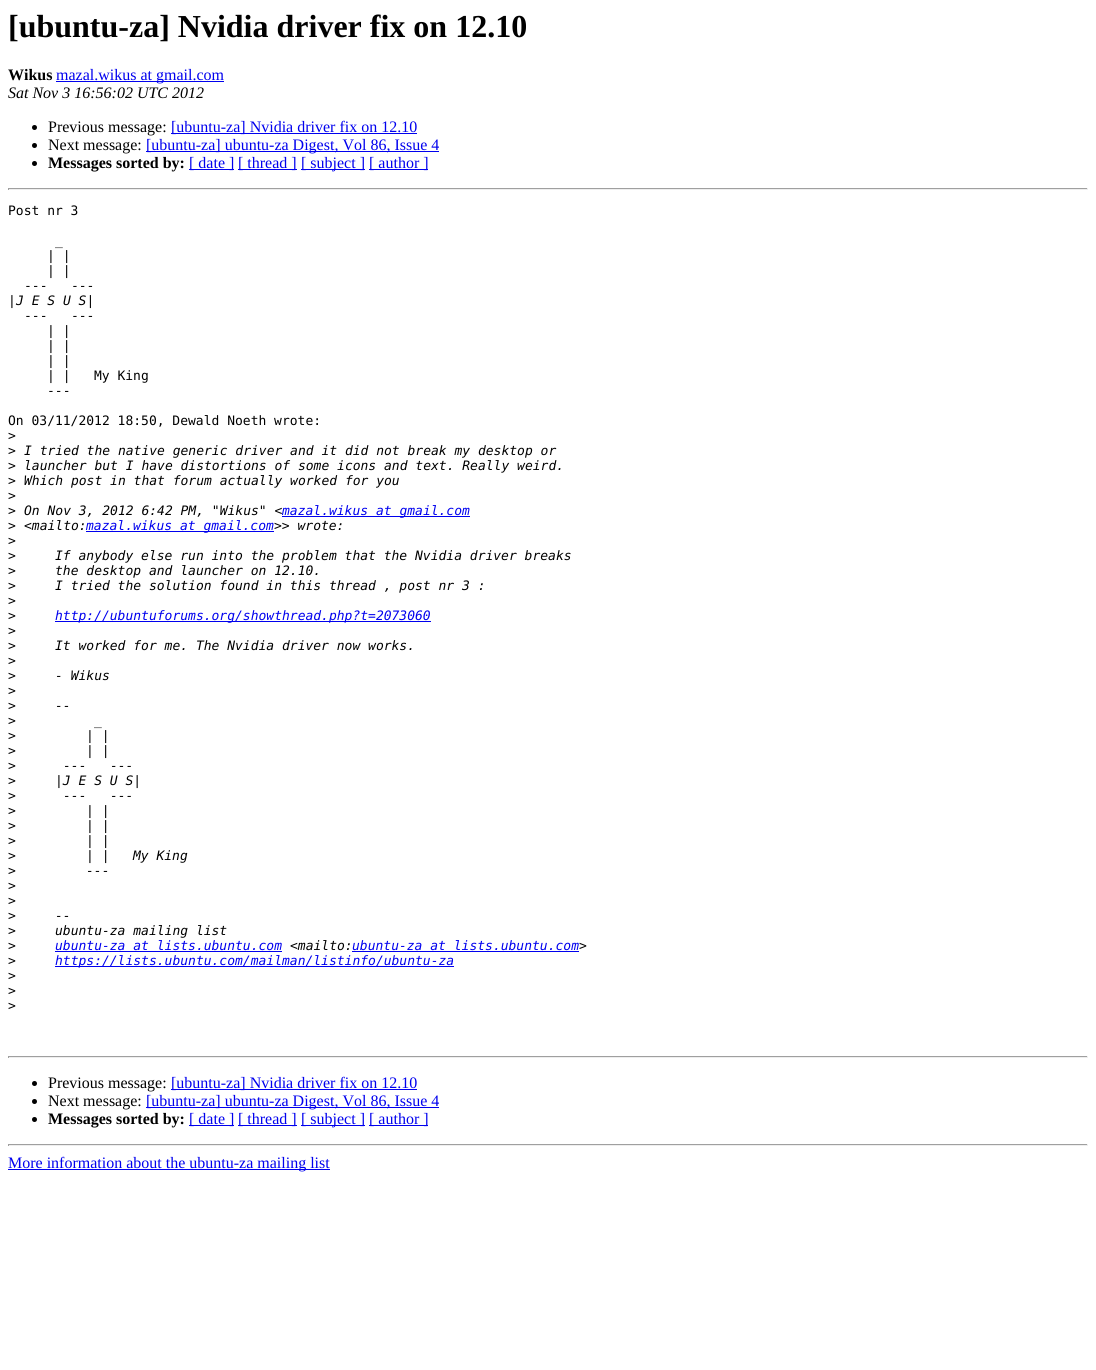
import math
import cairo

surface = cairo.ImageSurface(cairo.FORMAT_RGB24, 1096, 1370)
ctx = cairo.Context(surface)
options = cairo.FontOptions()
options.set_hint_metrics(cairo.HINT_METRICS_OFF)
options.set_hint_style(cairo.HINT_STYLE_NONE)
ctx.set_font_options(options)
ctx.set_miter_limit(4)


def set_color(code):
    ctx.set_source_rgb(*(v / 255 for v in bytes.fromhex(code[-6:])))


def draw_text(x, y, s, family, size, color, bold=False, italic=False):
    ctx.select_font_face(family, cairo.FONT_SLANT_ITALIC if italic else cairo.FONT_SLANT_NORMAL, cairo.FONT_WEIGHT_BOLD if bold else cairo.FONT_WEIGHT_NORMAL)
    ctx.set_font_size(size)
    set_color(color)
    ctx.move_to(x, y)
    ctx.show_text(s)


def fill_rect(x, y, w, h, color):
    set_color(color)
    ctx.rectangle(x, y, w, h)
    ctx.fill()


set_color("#ffffff")
ctx.paint()
draw_text(8, 37, "[ubuntu-za] Nvidia driver fix on 12.10", "Liberation Serif", 32, "#000000", bold=True)
draw_text(8, 80, "Wikus", "Liberation Serif", 16, "#000000", bold=True)
fill_rect(56, 81, 168, 1, "#0000ee")
draw_text(56, 80, "mazal.wikus at gmail.com", "Liberation Serif", 16, "#0000ee")
draw_text(8, 98, "Sat Nov 3 16:56:02 UTC 2012", "Liberation Serif", 16, "#000000", italic=True)
ctx.new_path()
ctx.arc(34.5, 127.5, 2.5, 0, 2 * math.pi)
ctx.fill()
draw_text(48, 132, "Previous message:", "Liberation Serif", 16, "#000000")
fill_rect(171, 133, 246, 1, "#0000ee")
draw_text(171, 132, "[ubuntu-za] Nvidia driver fix on 12.10", "Liberation Serif", 16, "#0000ee")
set_color("#000000")
ctx.new_path()
ctx.arc(34.5, 145.5, 2.5, 0, 2 * math.pi)
ctx.fill()
draw_text(48, 150, "Next message:", "Liberation Serif", 16, "#000000")
fill_rect(146, 151, 293, 1, "#0000ee")
draw_text(146, 150, "[ubuntu-za] ubuntu-za Digest, Vol 86, Issue 4", "Liberation Serif", 16, "#0000ee")
set_color("#000000")
ctx.new_path()
ctx.arc(34.5, 163.5, 2.5, 0, 2 * math.pi)
ctx.fill()
draw_text(48, 168, "Messages sorted by:", "Liberation Serif", 16, "#000000", bold=True)
fill_rect(189, 169, 45, 1, "#0000ee")
draw_text(189, 168, "[ date ]", "Liberation Serif", 16, "#0000ee")
fill_rect(238, 169, 59, 1, "#0000ee")
draw_text(238, 168, "[ thread ]", "Liberation Serif", 16, "#0000ee")
fill_rect(301, 169, 64, 1, "#0000ee")
draw_text(301, 168, "[ subject ]", "Liberation Serif", 16, "#0000ee")
fill_rect(369, 169, 59, 1, "#0000ee")
draw_text(369, 168, "[ author ]", "Liberation Serif", 16, "#0000ee")
fill_rect(8, 188, 1080, 1, "#9f9f9f")
fill_rect(1087, 188, 1, 2, "#eeeeee")
fill_rect(8, 189, 1080, 1, "#eeeeee")
fill_rect(8, 188, 1, 2, "#9f9f9f")
draw_text(8, 215, "Post nr 3", "DejaVu Sans Mono", 13, "#000000")
draw_text(55, 245, "_", "DejaVu Sans Mono", 13, "#000000")
draw_text(47, 260, "| |", "DejaVu Sans Mono", 13, "#000000")
draw_text(47, 275, "| |", "DejaVu Sans Mono", 13, "#000000")
draw_text(24, 290, "---   ---", "DejaVu Sans Mono", 13, "#000000")
draw_text(8, 305, "|", "DejaVu Sans Mono", 13, "#000000")
draw_text(16, 305, "J E S U S|", "DejaVu Sans Mono", 13, "#000000", italic=True)
draw_text(24, 320, "---   ---", "DejaVu Sans Mono", 13, "#000000")
draw_text(47, 335, "| |", "DejaVu Sans Mono", 13, "#000000")
draw_text(47, 350, "| |", "DejaVu Sans Mono", 13, "#000000")
draw_text(47, 365, "| |", "DejaVu Sans Mono", 13, "#000000")
draw_text(47, 380, "| |   My King", "DejaVu Sans Mono", 13, "#000000")
draw_text(47, 395, "---", "DejaVu Sans Mono", 13, "#000000")
draw_text(8, 425, "On 03/11/2012 18:50, Dewald Noeth wrote:", "DejaVu Sans Mono", 13, "#000000")
draw_text(8, 440, ">", "DejaVu Sans Mono", 13, "#000000")
draw_text(8, 455, ">", "DejaVu Sans Mono", 13, "#000000")
draw_text(24, 455, "I tried the native generic driver and it did not break my desktop or", "DejaVu Sans Mono", 13, "#000000", italic=True)
draw_text(8, 470, ">", "DejaVu Sans Mono", 13, "#000000")
draw_text(24, 470, "launcher but I have distortions of some icons and text. Really weird.", "DejaVu Sans Mono", 13, "#000000", italic=True)
draw_text(8, 485, ">", "DejaVu Sans Mono", 13, "#000000")
draw_text(24, 485, "Which post in that forum actually worked for you", "DejaVu Sans Mono", 13, "#000000", italic=True)
draw_text(8, 500, ">", "DejaVu Sans Mono", 13, "#000000")
draw_text(8, 515, ">", "DejaVu Sans Mono", 13, "#000000")
draw_text(24, 515, "On Nov 3, 2012 6:42 PM, \"Wikus\" <", "DejaVu Sans Mono", 13, "#000000", italic=True)
fill_rect(282, 516, 188, 1, "#0000ee")
draw_text(282, 515, "mazal.wikus at gmail.com", "DejaVu Sans Mono", 13, "#0000ee", italic=True)
draw_text(8, 530, ">", "DejaVu Sans Mono", 13, "#000000")
draw_text(24, 530, "<mailto:", "DejaVu Sans Mono", 13, "#000000", italic=True)
fill_rect(86, 531, 188, 1, "#0000ee")
draw_text(86, 530, "mazal.wikus at gmail.com", "DejaVu Sans Mono", 13, "#0000ee", italic=True)
draw_text(274, 530, ">> wrote:", "DejaVu Sans Mono", 13, "#000000", italic=True)
draw_text(8, 545, ">", "DejaVu Sans Mono", 13, "#000000")
draw_text(8, 560, ">", "DejaVu Sans Mono", 13, "#000000")
draw_text(55, 560, "If anybody else run into the problem that the Nvidia driver breaks", "DejaVu Sans Mono", 13, "#000000", italic=True)
draw_text(8, 575, ">", "DejaVu Sans Mono", 13, "#000000")
draw_text(55, 575, "the desktop and launcher on 12.10.", "DejaVu Sans Mono", 13, "#000000", italic=True)
draw_text(8, 590, ">", "DejaVu Sans Mono", 13, "#000000")
draw_text(55, 590, "I tried the solution found in this thread , post nr 3 :", "DejaVu Sans Mono", 13, "#000000", italic=True)
draw_text(8, 605, ">", "DejaVu Sans Mono", 13, "#000000")
draw_text(8, 620, ">", "DejaVu Sans Mono", 13, "#000000")
fill_rect(55, 621, 376, 1, "#0000ee")
draw_text(55, 620, "http://ubuntuforums.org/showthread.php?t=2073060", "DejaVu Sans Mono", 13, "#0000ee", italic=True)
draw_text(8, 635, ">", "DejaVu Sans Mono", 13, "#000000")
draw_text(8, 650, ">", "DejaVu Sans Mono", 13, "#000000")
draw_text(55, 650, "It worked for me. The Nvidia driver now works.", "DejaVu Sans Mono", 13, "#000000", italic=True)
draw_text(8, 665, ">", "DejaVu Sans Mono", 13, "#000000")
draw_text(8, 680, ">", "DejaVu Sans Mono", 13, "#000000")
draw_text(55, 680, "- Wikus", "DejaVu Sans Mono", 13, "#000000", italic=True)
draw_text(8, 695, ">", "DejaVu Sans Mono", 13, "#000000")
draw_text(8, 710, ">", "DejaVu Sans Mono", 13, "#000000")
draw_text(55, 710, "--", "DejaVu Sans Mono", 13, "#000000", italic=True)
draw_text(8, 725, ">", "DejaVu Sans Mono", 13, "#000000")
draw_text(94, 725, "_", "DejaVu Sans Mono", 13, "#000000", italic=True)
draw_text(8, 740, ">", "DejaVu Sans Mono", 13, "#000000")
draw_text(86, 740, "| |", "DejaVu Sans Mono", 13, "#000000", italic=True)
draw_text(8, 755, ">", "DejaVu Sans Mono", 13, "#000000")
draw_text(86, 755, "| |", "DejaVu Sans Mono", 13, "#000000", italic=True)
draw_text(8, 770, ">", "DejaVu Sans Mono", 13, "#000000")
draw_text(63, 770, "---   ---", "DejaVu Sans Mono", 13, "#000000", italic=True)
draw_text(8, 785, ">", "DejaVu Sans Mono", 13, "#000000")
draw_text(55, 785, "|J E S U S|", "DejaVu Sans Mono", 13, "#000000", italic=True)
draw_text(8, 800, ">", "DejaVu Sans Mono", 13, "#000000")
draw_text(63, 800, "---   ---", "DejaVu Sans Mono", 13, "#000000", italic=True)
draw_text(8, 815, ">", "DejaVu Sans Mono", 13, "#000000")
draw_text(86, 815, "| |", "DejaVu Sans Mono", 13, "#000000", italic=True)
draw_text(8, 830, ">", "DejaVu Sans Mono", 13, "#000000")
draw_text(86, 830, "| |", "DejaVu Sans Mono", 13, "#000000", italic=True)
draw_text(8, 845, ">", "DejaVu Sans Mono", 13, "#000000")
draw_text(86, 845, "| |", "DejaVu Sans Mono", 13, "#000000", italic=True)
draw_text(8, 860, ">", "DejaVu Sans Mono", 13, "#000000")
draw_text(86, 860, "| |   My King", "DejaVu Sans Mono", 13, "#000000", italic=True)
draw_text(8, 875, ">", "DejaVu Sans Mono", 13, "#000000")
draw_text(86, 875, "---", "DejaVu Sans Mono", 13, "#000000", italic=True)
draw_text(8, 890, ">", "DejaVu Sans Mono", 13, "#000000")
draw_text(8, 905, ">", "DejaVu Sans Mono", 13, "#000000")
draw_text(8, 920, ">", "DejaVu Sans Mono", 13, "#000000")
draw_text(55, 920, "--", "DejaVu Sans Mono", 13, "#000000", italic=True)
draw_text(8, 935, ">", "DejaVu Sans Mono", 13, "#000000")
draw_text(55, 935, "ubuntu-za mailing list", "DejaVu Sans Mono", 13, "#000000", italic=True)
draw_text(8, 950, ">", "DejaVu Sans Mono", 13, "#000000")
draw_text(55, 950, "ubuntu-za at lists.ubuntu.com", "DejaVu Sans Mono", 13, "#0000ee", italic=True)
fill_rect(55, 951, 227, 1, "#0000ee")
draw_text(290, 950, "<mailto:", "DejaVu Sans Mono", 13, "#000000", italic=True)
draw_text(352, 950, "ubuntu-za at lists.ubuntu.com", "DejaVu Sans Mono", 13, "#0000ee", italic=True)
draw_text(579, 950, ">", "DejaVu Sans Mono", 13, "#000000", italic=True)
fill_rect(352, 951, 227, 1, "#0000ee")
draw_text(8, 965, ">", "DejaVu Sans Mono", 13, "#000000")
fill_rect(55, 966, 399, 1, "#0000ee")
draw_text(55, 965, "https://lists.ubuntu.com/mailman/listinfo/ubuntu-za", "DejaVu Sans Mono", 13, "#0000ee", italic=True)
draw_text(8, 980, ">", "DejaVu Sans Mono", 13, "#000000")
draw_text(8, 995, ">", "DejaVu Sans Mono", 13, "#000000")
draw_text(8, 1010, ">", "DejaVu Sans Mono", 13, "#000000")
fill_rect(8, 1056, 1080, 1, "#9f9f9f")
fill_rect(1087, 1056, 1, 2, "#eeeeee")
fill_rect(8, 1057, 1080, 1, "#eeeeee")
fill_rect(8, 1056, 1, 2, "#9f9f9f")
set_color("#000000")
ctx.new_path()
ctx.arc(34.5, 1083.5, 2.5, 0, 2 * math.pi)
ctx.fill()
draw_text(48, 1088, "Previous message:", "Liberation Serif", 16, "#000000")
fill_rect(171, 1089, 246, 1, "#0000ee")
draw_text(171, 1088, "[ubuntu-za] Nvidia driver fix on 12.10", "Liberation Serif", 16, "#0000ee")
set_color("#000000")
ctx.new_path()
ctx.arc(34.5, 1101.5, 2.5, 0, 2 * math.pi)
ctx.fill()
draw_text(48, 1106, "Next message:", "Liberation Serif", 16, "#000000")
fill_rect(146, 1107, 293, 1, "#0000ee")
draw_text(146, 1106, "[ubuntu-za] ubuntu-za Digest, Vol 86, Issue 4", "Liberation Serif", 16, "#0000ee")
set_color("#000000")
ctx.new_path()
ctx.arc(34.5, 1119.5, 2.5, 0, 2 * math.pi)
ctx.fill()
draw_text(48, 1124, "Messages sorted by:", "Liberation Serif", 16, "#000000", bold=True)
fill_rect(189, 1125, 45, 1, "#0000ee")
draw_text(189, 1124, "[ date ]", "Liberation Serif", 16, "#0000ee")
fill_rect(238, 1125, 59, 1, "#0000ee")
draw_text(238, 1124, "[ thread ]", "Liberation Serif", 16, "#0000ee")
fill_rect(301, 1125, 64, 1, "#0000ee")
draw_text(301, 1124, "[ subject ]", "Liberation Serif", 16, "#0000ee")
fill_rect(369, 1125, 59, 1, "#0000ee")
draw_text(369, 1124, "[ author ]", "Liberation Serif", 16, "#0000ee")
fill_rect(8, 1144, 1080, 1, "#9f9f9f")
fill_rect(1087, 1144, 1, 2, "#eeeeee")
fill_rect(8, 1145, 1080, 1, "#eeeeee")
fill_rect(8, 1144, 1, 2, "#9f9f9f")
fill_rect(8, 1169, 322, 1, "#0000ee")
draw_text(8, 1168, "More information about the ubuntu-za mailing list", "Liberation Serif", 16, "#0000ee")
surface.write_to_png("output.png")
